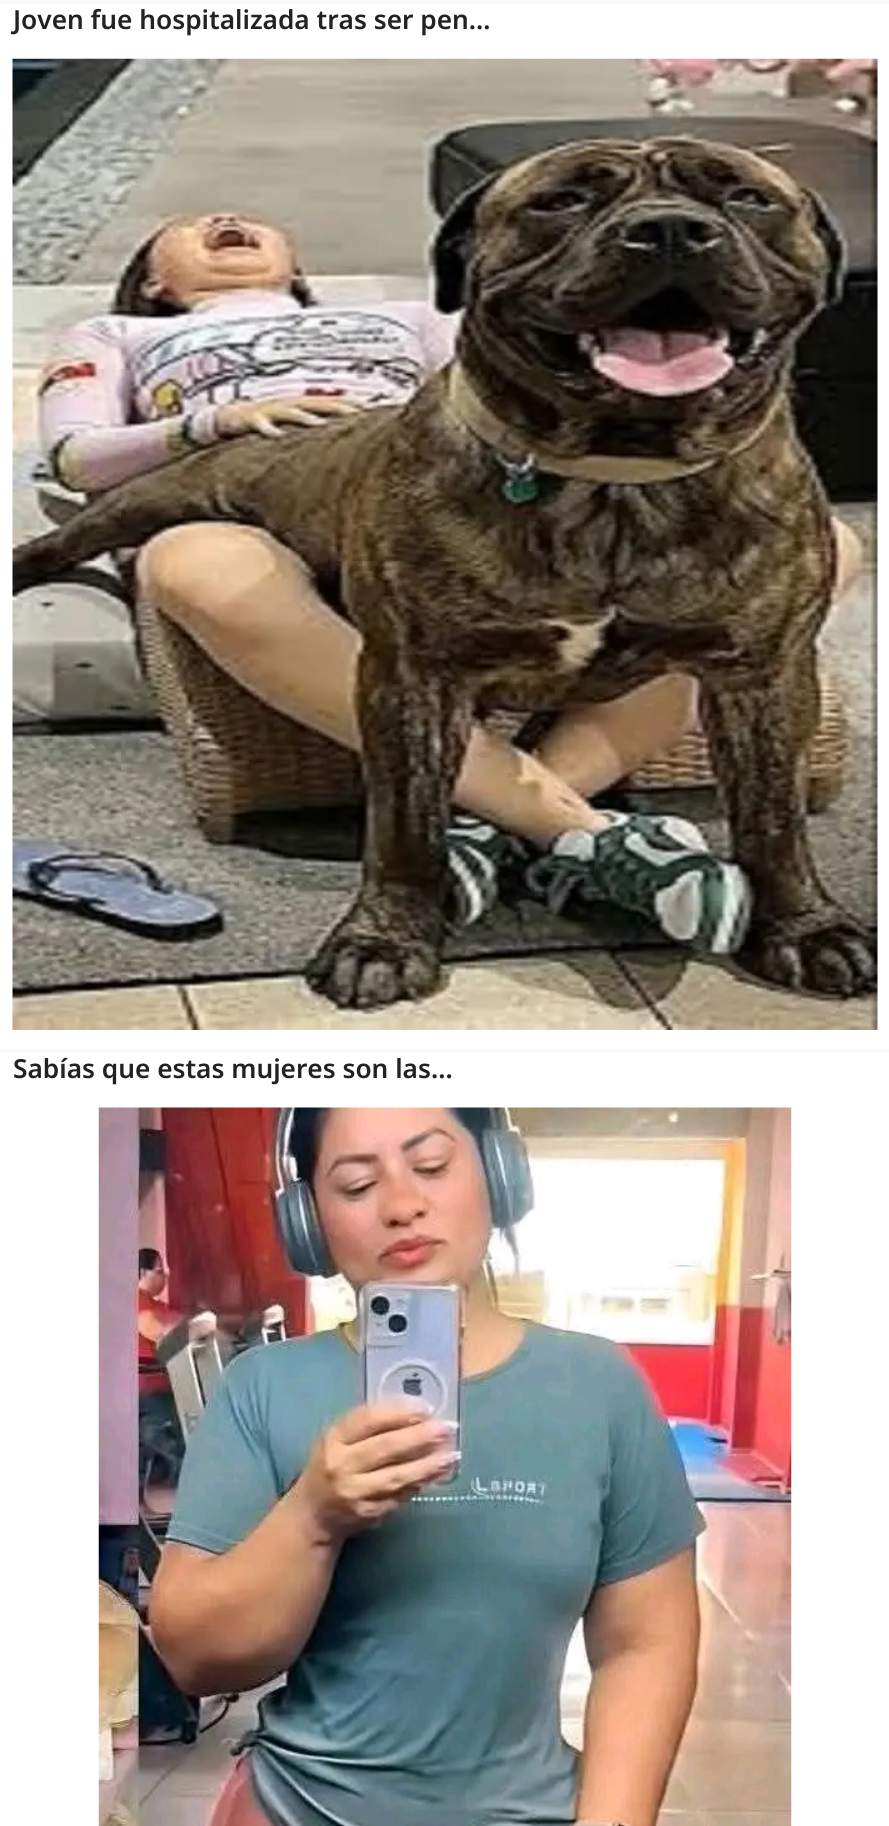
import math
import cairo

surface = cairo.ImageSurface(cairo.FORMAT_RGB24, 889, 1826)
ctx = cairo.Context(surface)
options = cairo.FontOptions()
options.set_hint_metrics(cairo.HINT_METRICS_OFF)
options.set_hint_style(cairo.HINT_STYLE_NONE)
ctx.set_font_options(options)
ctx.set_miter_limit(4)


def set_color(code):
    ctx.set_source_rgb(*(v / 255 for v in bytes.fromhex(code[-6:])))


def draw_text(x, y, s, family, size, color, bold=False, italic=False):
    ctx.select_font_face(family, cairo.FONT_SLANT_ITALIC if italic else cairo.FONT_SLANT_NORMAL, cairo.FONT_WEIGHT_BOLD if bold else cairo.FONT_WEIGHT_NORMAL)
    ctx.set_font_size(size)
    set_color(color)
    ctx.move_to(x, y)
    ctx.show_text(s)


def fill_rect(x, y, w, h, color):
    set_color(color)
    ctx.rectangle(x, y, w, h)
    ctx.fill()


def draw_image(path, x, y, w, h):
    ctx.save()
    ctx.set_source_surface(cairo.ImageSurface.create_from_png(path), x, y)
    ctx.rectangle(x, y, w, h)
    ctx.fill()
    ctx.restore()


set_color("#f7f8f9")
ctx.paint()
fill_rect(0, 4, 889, 1045, "#ffffff")
draw_text(13, 29, "Joven fue hospitalizada tras ser pen…", "Noto Sans SemiBold", 26.25, "#222222")
draw_image("assets/img1.png", 12, 58, 866, 972)
fill_rect(0, 1053, 889, 773, "#ffffff")
draw_text(13, 1078, "Sabías que estas mujeres son las…", "Noto Sans SemiBold", 26.25, "#222222")
draw_image("assets/img2.png", 98, 1107, 694, 719)
surface.write_to_png("output.png")
